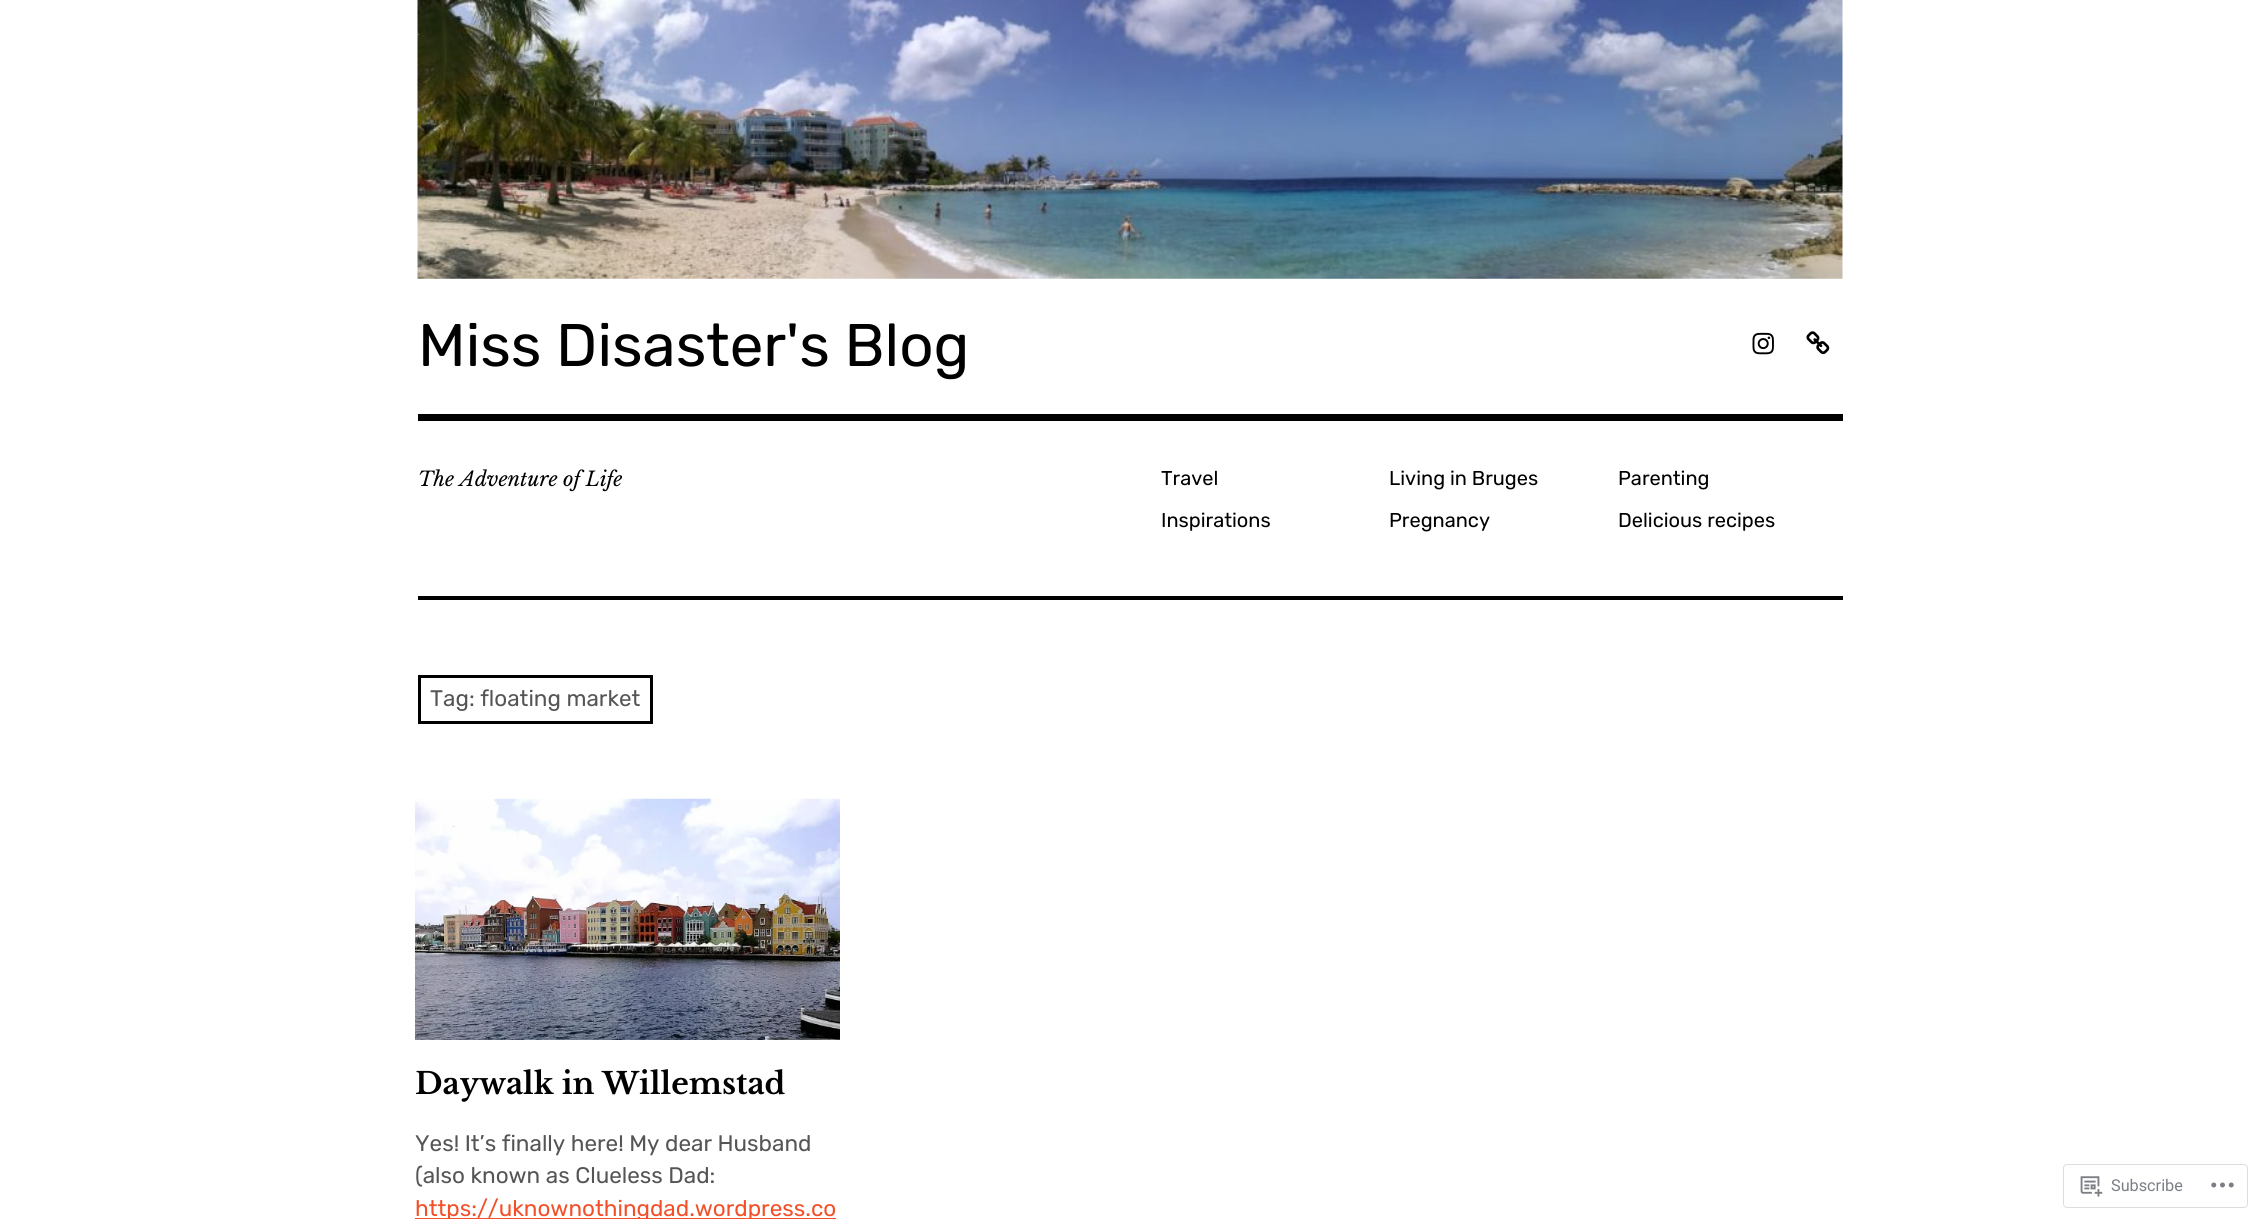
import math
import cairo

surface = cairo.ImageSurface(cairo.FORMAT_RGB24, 2259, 1219)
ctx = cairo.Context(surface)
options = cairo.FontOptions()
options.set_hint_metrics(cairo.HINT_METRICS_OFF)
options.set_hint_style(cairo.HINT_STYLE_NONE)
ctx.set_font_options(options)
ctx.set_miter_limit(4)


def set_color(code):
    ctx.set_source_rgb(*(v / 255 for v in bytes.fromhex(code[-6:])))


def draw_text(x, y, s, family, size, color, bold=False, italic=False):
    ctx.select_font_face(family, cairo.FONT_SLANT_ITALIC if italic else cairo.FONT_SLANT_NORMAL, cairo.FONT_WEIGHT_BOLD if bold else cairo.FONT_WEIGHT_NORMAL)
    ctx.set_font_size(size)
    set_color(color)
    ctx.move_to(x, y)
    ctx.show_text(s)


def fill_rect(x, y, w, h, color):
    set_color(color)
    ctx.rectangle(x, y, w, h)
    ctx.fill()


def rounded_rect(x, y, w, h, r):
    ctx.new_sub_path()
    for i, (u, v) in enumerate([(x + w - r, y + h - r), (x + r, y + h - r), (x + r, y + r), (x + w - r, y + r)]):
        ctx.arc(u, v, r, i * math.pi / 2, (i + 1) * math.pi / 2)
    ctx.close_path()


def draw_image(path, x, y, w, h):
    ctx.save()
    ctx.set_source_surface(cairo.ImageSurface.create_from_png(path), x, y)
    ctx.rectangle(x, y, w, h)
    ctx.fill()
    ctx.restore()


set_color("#ffffff")
ctx.paint()
draw_image("assets/img1.png", 417, 0, 1426, 279)
fill_rect(418, 414, 1425, 7, "#000000")
draw_text(418, 366, "Miss Disaster's Blog", "Rubik", 60, "#000000")
draw_image("assets/img2.png", 1752, 332, 22, 23)
draw_image("assets/img3.png", 1806, 331, 24, 24)
draw_text(418, 486, "The Adventure of Life", "Libre Baskerville", 20, "#000000", italic=True)
draw_text(1161, 485, "Travel", "Rubik", 20, "#000000")
draw_text(1161, 527, "Inspirations", "Rubik", 20, "#000000")
draw_text(1389, 485, "Living in Bruges", "Rubik", 20, "#000000")
draw_text(1389, 527, "Pregnancy", "Rubik", 20, "#000000")
draw_text(1618, 485, "Parenting", "Rubik", 20, "#000000")
draw_text(1618, 527, "Delicious recipes", "Rubik", 20, "#000000")
fill_rect(418, 596, 1425, 4, "#000000")
ctx.rectangle(419.5, 676.5, 232, 46)
ctx.set_line_width(3)
ctx.stroke()
draw_text(430, 706, "Tag: floating market", "Rubik", 22.5, "#555555")
draw_image("assets/img4.png", 415, 798, 425, 242)
draw_text(415, 1094, "Daywalk in Willemstad", "Libre Baskerville", 30, "#000000", bold=True)
draw_text(415, 1151, "Yes! It’s finally here! My dear Husband", "Rubik", 22.5, "#555555")
draw_text(415, 1183, "(also known as Clueless Dad:", "Rubik", 22.5, "#555555")
fill_rect(415, 1218, 421, 1, "#f35029")
draw_text(415, 1216, "https://uknownothingdad.wordpress.co", "Rubik", 22.5, "#f35029")
rounded_rect(2063.5, 1164.5, 184, 43, 3.5)
set_color("#dddddf")
ctx.set_line_width(1)
ctx.stroke()
draw_image("assets/img5.png", 2080, 1176, 23, 21)
draw_text(2111, 1191, "Subscribe", "Roboto", 16.25, "#7b7f85")
draw_image("assets/img6.png", 2211, 1182, 23, 6)
surface.write_to_png("output.png")
